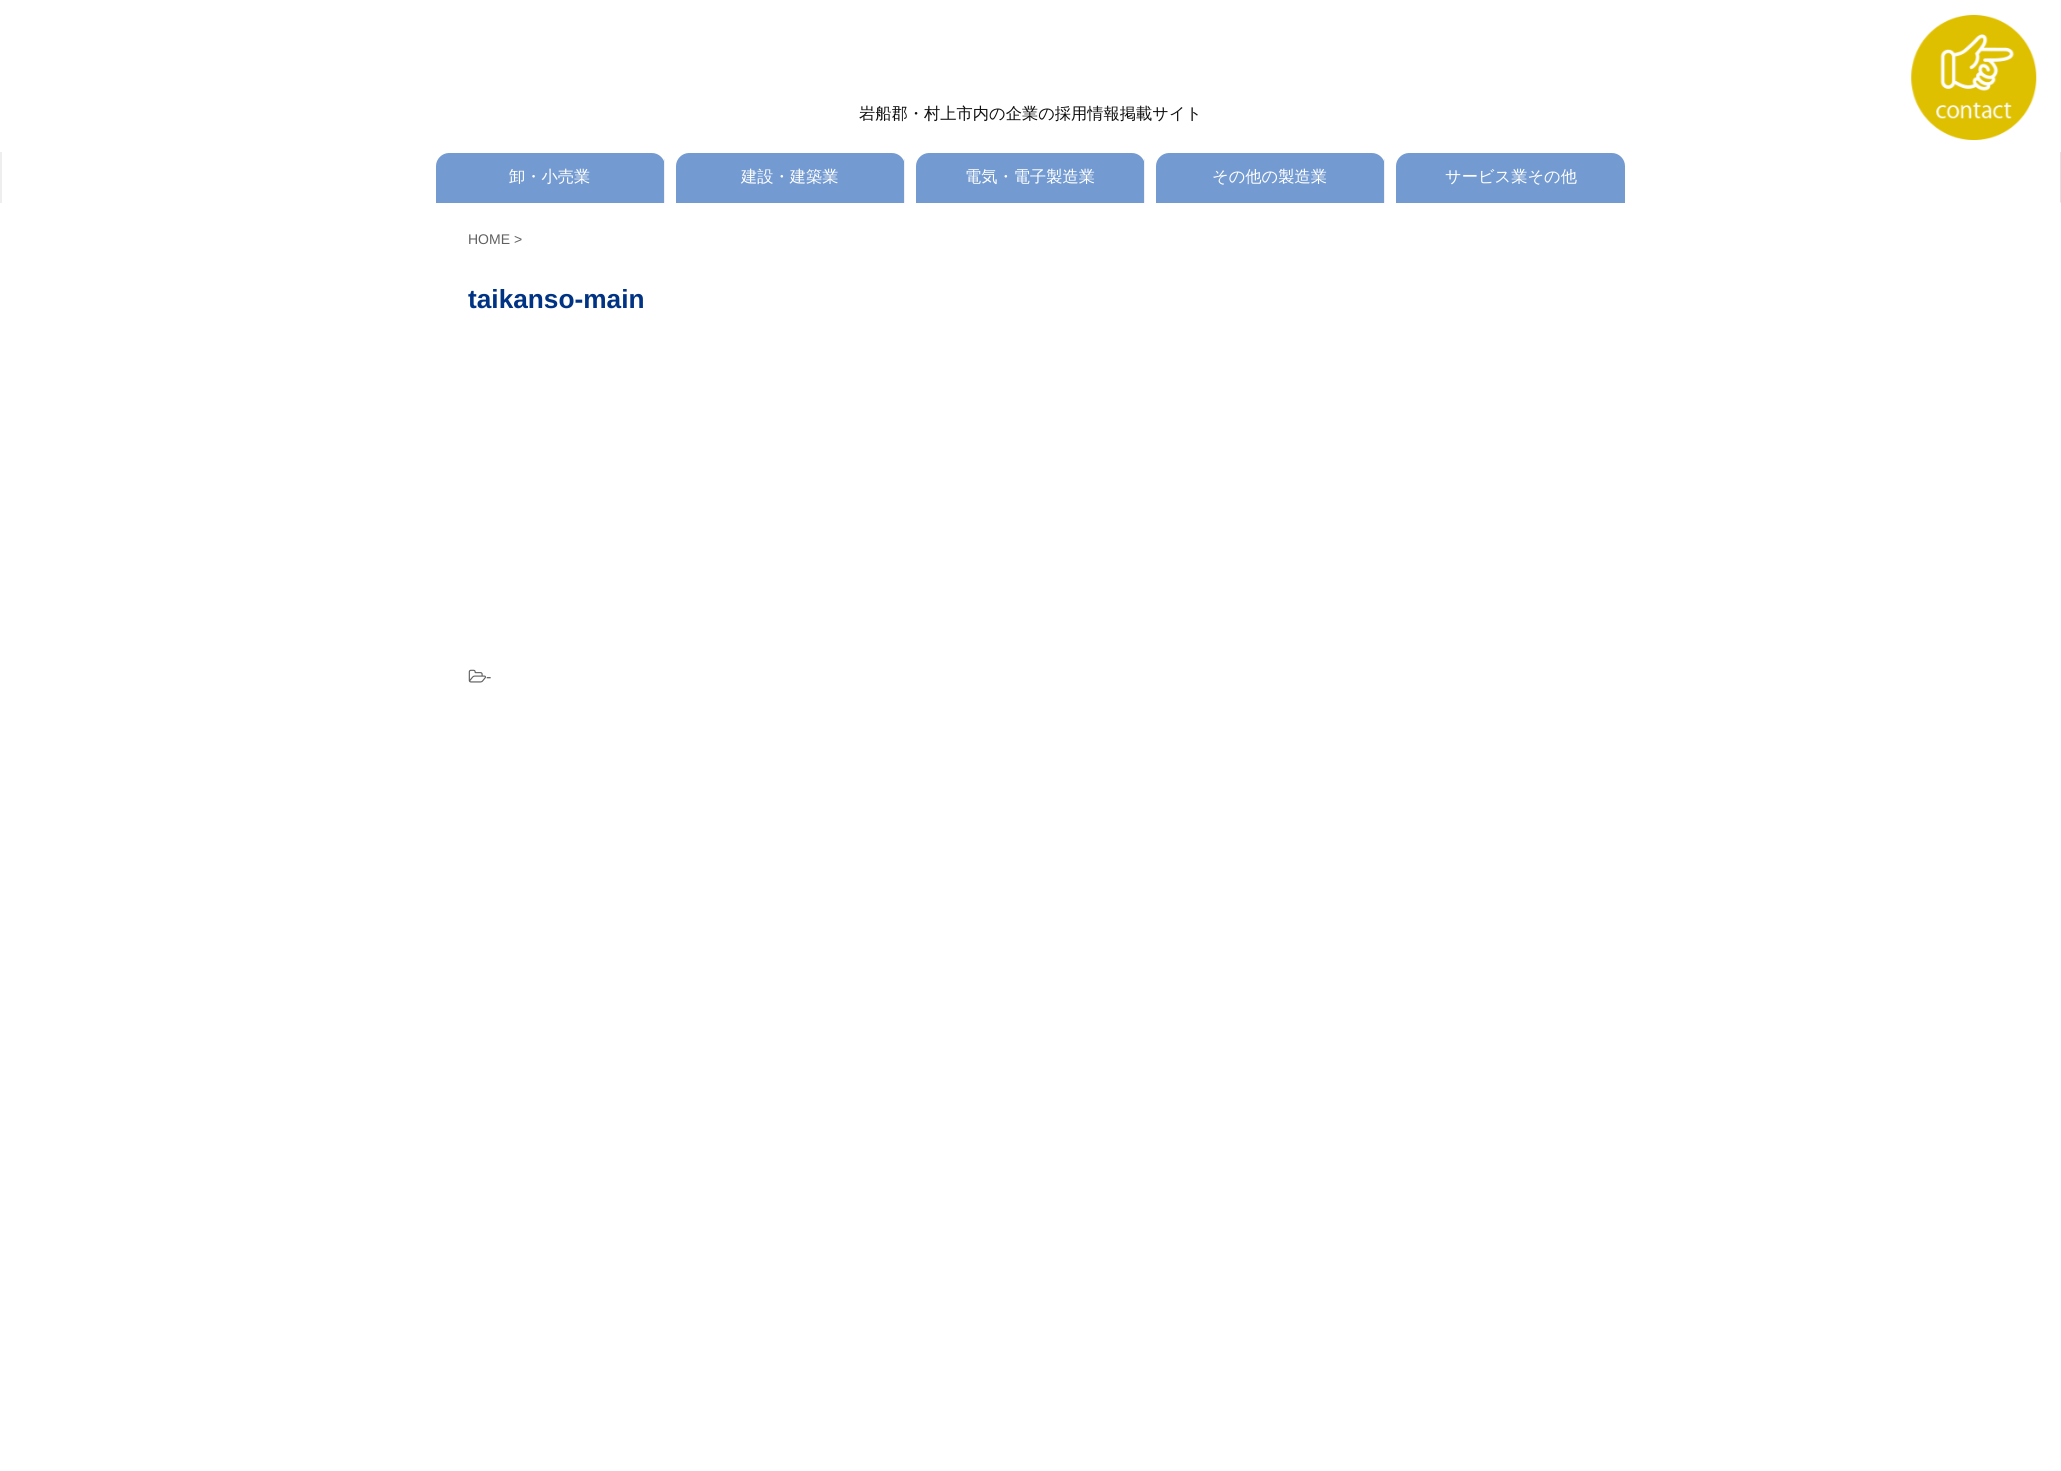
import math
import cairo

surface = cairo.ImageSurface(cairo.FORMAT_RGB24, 2061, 1471)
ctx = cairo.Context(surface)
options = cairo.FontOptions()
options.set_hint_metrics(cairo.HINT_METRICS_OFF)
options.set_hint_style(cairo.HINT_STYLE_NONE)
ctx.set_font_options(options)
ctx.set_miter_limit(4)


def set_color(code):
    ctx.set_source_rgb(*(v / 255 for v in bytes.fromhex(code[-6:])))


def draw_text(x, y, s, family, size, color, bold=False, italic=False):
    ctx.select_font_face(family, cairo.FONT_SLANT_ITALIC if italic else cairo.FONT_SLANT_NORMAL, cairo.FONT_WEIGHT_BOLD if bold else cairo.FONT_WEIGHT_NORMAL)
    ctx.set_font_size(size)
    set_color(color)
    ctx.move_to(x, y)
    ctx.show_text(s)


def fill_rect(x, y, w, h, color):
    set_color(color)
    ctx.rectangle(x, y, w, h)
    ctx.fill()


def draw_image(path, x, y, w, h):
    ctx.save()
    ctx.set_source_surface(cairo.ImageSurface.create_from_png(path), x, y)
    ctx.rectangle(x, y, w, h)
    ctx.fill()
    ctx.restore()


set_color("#ffffff")
ctx.paint()
draw_text(859, 119, "岩船郡・村上市内の企業の採用情報掲載サイト", "WenQuanYi Zen Hei Medium", 16.25, "#0f0f0f")
draw_image("assets/img1.png", 1911, 15, 126, 125)
fill_rect(2060, 152, 1, 51, "#e3e3e3")
ctx.new_path()
ctx.move_to(2060.5, 203)
ctx.line_to(1, 203)
set_color("#ffffff")
ctx.set_line_width(1.2)
ctx.stroke()
ctx.new_path()
ctx.move_to(1, 203)
ctx.line_to(1, 152)
set_color("#e3e3e3")
ctx.stroke()
set_color("#749bd1")
ctx.new_path()
ctx.move_to(449, 153)
ctx.line_to(652, 153)
ctx.curve_to(659, 153, 665, 159, 665, 166)
ctx.line_to(665, 203)
ctx.line_to(436, 203)
ctx.line_to(436, 166)
ctx.curve_to(436, 159, 442, 153, 449, 153)
ctx.close_path()
ctx.fill()
fill_rect(664, 159, 1, 44, "#f0f0f0")
draw_text(509, 182, "卸・小売業", "WenQuanYi Zen Hei Medium", 16.25, "#ffffff")
set_color("#749bd1")
ctx.new_path()
ctx.move_to(689, 153)
ctx.line_to(892, 153)
ctx.curve_to(899, 153, 905, 159, 905, 166)
ctx.line_to(905, 203)
ctx.line_to(676, 203)
ctx.line_to(676, 166)
ctx.curve_to(676, 159, 682, 153, 689, 153)
ctx.close_path()
ctx.fill()
fill_rect(904, 159, 1, 44, "#f0f0f0")
draw_text(741, 182, "建設・建築業", "WenQuanYi Zen Hei Medium", 16.25, "#ffffff")
set_color("#749bd1")
ctx.new_path()
ctx.move_to(929, 153)
ctx.line_to(1132, 153)
ctx.curve_to(1139, 153, 1145, 159, 1145, 166)
ctx.line_to(1145, 203)
ctx.line_to(916, 203)
ctx.line_to(916, 166)
ctx.curve_to(916, 159, 922, 153, 929, 153)
ctx.close_path()
ctx.fill()
fill_rect(1144, 159, 1, 44, "#f0f0f0")
draw_text(965, 182, "電気・電子製造業", "WenQuanYi Zen Hei Medium", 16.25, "#ffffff")
set_color("#749bd1")
ctx.new_path()
ctx.move_to(1169, 153)
ctx.line_to(1372, 153)
ctx.curve_to(1379, 153, 1385, 159, 1385, 166)
ctx.line_to(1385, 203)
ctx.line_to(1156, 203)
ctx.line_to(1156, 166)
ctx.curve_to(1156, 159, 1162, 153, 1169, 153)
ctx.close_path()
ctx.fill()
fill_rect(1384, 159, 1, 44, "#f0f0f0")
draw_text(1212, 182, "その他の製造業", "WenQuanYi Zen Hei Medium", 16.25, "#ffffff")
set_color("#749bd1")
ctx.new_path()
ctx.move_to(1409, 153)
ctx.line_to(1612, 153)
ctx.curve_to(1619, 153, 1625, 159, 1625, 166)
ctx.line_to(1625, 203)
ctx.line_to(1396, 203)
ctx.line_to(1396, 166)
ctx.curve_to(1396, 159, 1402, 153, 1409, 153)
ctx.close_path()
ctx.fill()
draw_text(1445, 182, "サービス業その他", "WenQuanYi Zen Hei Medium", 16.25, "#ffffff")
draw_text(468, 244, "HOME >", "Liberation Sans", 14, "#616161")
draw_text(468, 308, "taikanso-main", "Liberation Sans", 26.25, "#003383", bold=True)
draw_image("assets/img2.png", 468, 669, 18, 14)
draw_text(486, 682, "-", "Liberation Sans", 16.25, "#616161")
surface.write_to_png("output.png")
